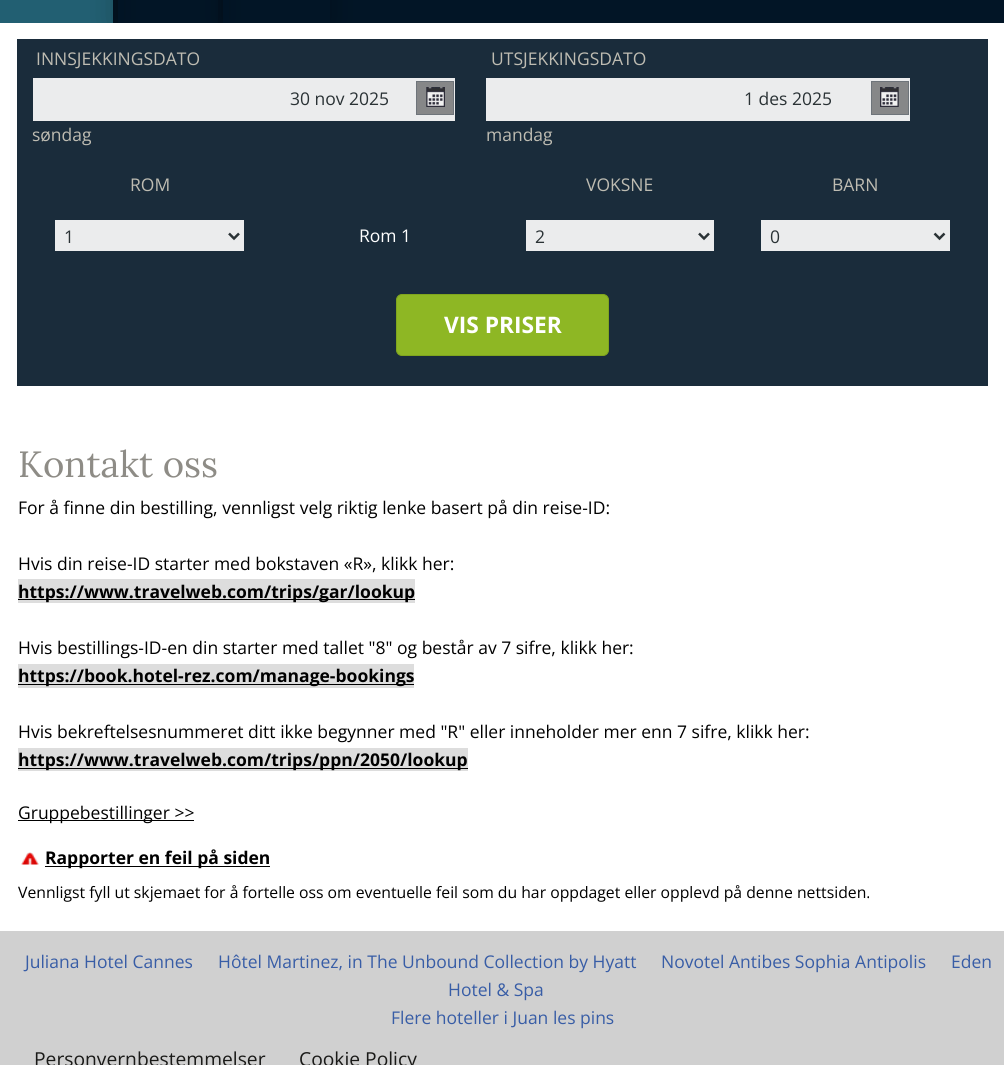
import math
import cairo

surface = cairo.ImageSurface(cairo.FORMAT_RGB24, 1004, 1065)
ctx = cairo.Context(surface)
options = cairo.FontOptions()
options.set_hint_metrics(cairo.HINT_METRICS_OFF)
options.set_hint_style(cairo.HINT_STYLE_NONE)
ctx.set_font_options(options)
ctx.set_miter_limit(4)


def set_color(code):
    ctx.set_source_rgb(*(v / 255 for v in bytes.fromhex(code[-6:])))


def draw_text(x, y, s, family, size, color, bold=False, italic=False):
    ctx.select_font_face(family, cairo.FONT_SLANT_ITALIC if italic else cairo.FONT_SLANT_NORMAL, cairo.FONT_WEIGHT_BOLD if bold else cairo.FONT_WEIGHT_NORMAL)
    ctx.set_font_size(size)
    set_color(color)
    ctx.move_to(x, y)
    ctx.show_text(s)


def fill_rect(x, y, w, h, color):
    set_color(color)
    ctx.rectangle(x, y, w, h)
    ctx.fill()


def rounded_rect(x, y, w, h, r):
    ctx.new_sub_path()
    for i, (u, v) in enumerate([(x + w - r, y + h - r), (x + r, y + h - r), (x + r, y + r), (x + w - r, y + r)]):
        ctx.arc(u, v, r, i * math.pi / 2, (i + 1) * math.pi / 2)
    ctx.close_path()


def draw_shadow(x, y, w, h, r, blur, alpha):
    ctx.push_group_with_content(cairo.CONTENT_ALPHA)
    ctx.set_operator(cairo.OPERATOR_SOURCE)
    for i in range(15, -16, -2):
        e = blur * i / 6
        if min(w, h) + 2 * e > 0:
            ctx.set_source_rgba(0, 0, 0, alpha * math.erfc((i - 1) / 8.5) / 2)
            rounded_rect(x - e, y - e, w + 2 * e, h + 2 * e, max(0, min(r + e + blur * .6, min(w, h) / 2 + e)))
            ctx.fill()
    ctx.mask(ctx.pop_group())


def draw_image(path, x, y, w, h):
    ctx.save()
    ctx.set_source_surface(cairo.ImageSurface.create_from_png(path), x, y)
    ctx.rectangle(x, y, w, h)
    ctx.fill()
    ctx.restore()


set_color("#d0d0d0")
ctx.paint()
fill_rect(113, 0, 891, 23, "#021526")
set_color("#000000")
draw_shadow(0, -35, 113, 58, 0, 15, 0.27)
fill_rect(0, 0, 113, 23, "#225f72")
ctx.save()
ctx.set_fill_rule(cairo.FILL_RULE_EVEN_ODD)
ctx.new_path()
ctx.move_to(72, 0)
ctx.line_to(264, 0)
ctx.line_to(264, 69)
ctx.line_to(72, 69)
ctx.close_path()
ctx.move_to(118, -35)
ctx.line_to(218, -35)
ctx.line_to(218, 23)
ctx.line_to(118, 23)
ctx.close_path()
ctx.clip()
set_color("#000000")
draw_shadow(118, -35, 100, 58, 0, 15, 0.27)
ctx.restore()
ctx.set_source_rgba(0.008, 0.082, 0.149, 0.9)
ctx.rectangle(118, 0, 6, 23)
ctx.fill()
ctx.save()
ctx.set_fill_rule(cairo.FILL_RULE_EVEN_ODD)
ctx.new_path()
ctx.move_to(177, 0)
ctx.line_to(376, 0)
ctx.line_to(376, 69)
ctx.line_to(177, 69)
ctx.close_path()
ctx.move_to(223, -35)
ctx.line_to(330, -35)
ctx.line_to(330, 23)
ctx.line_to(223, 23)
ctx.close_path()
ctx.clip()
set_color("#000000")
draw_shadow(223, -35, 107, 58, 0, 15, 0.27)
ctx.restore()
ctx.rectangle(223, 0, 6, 23)
ctx.fill()
fill_rect(0, 23, 1004, 908, "#ffffff")
fill_rect(17, 39, 971, 347, "#1a2c3b")
draw_text(36, 65, "INNSJEKKINGSDATO", "Open Sans", 17.5, "#bebcb2")
fill_rect(33, 78, 422, 43, "#ebeced")
fill_rect(417, 82, 36, 32, "#868788")
draw_image("assets/img1.png", 426, 87, 19, 20)
ctx.rectangle(416.5, 81.5, 37, 33)
set_color("#6e747a")
ctx.set_line_width(1)
ctx.stroke()
draw_text(290, 105, "30 nov 2025", "Open Sans", 17.5, "#2a3235")
draw_text(32, 141, "søndag", "Open Sans", 17.5, "#bebcb2")
draw_text(491, 65, "UTSJEKKINGSDATO", "Open Sans", 17.5, "#bebcb2")
fill_rect(486, 78, 424, 43, "#ebeced")
fill_rect(872, 82, 36, 32, "#868788")
draw_image("assets/img2.png", 880, 87, 19, 20)
ctx.rectangle(871.5, 81.5, 37, 33)
set_color("#6e747a")
ctx.stroke()
draw_text(744, 105, "1 des 2025", "Open Sans", 17.5, "#2a3235")
draw_text(486, 141, "mandag", "Open Sans", 17.5, "#bebcb2")
draw_text(130, 191, "ROM", "Open Sans", 17.5, "#bebcb2")
draw_text(586, 191, "VOKSNE", "Open Sans", 17.5, "#bebcb2")
draw_text(832, 191, "BARN", "Open Sans", 17.5, "#bebcb2")
fill_rect(55, 220, 189, 31, "#ebeced")
ctx.new_path()
ctx.move_to(229, 233.5)
ctx.line_to(234, 238.5)
ctx.line_to(239, 233.5)
set_color("#2a3235")
ctx.set_line_width(2.5)
ctx.stroke()
draw_text(64, 243, "1", "Open Sans", 17.5, "#2a3235")
draw_text(359, 242, "Rom 1", "Open Sans", 17.5, "#ffffff")
fill_rect(526, 220, 188, 31, "#ebeced")
ctx.new_path()
ctx.move_to(699, 233.5)
ctx.line_to(704, 238.5)
ctx.line_to(709, 233.5)
set_color("#2a3235")
ctx.stroke()
draw_text(535, 243, "2", "Open Sans", 17.5, "#2a3235")
fill_rect(761, 220, 189, 31, "#ebeced")
ctx.new_path()
ctx.move_to(934.5, 233.5)
ctx.line_to(939.5, 238.5)
ctx.line_to(944.5, 233.5)
set_color("#2a3235")
ctx.stroke()
draw_text(770, 243, "0", "Open Sans", 17.5, "#2a3235")
set_color("#8eb724")
rounded_rect(396.5, 294.5, 212, 61, 5.5)
ctx.fill_preserve()
set_color("#80a51e")
ctx.set_line_width(1)
ctx.stroke()
draw_text(444, 333, "VIS PRISER", "Open Sans", 22.75, "#ffffff", bold=True)
draw_text(18, 477, "Kontakt oss", "Lora", 36.5, "#8e8c86")
draw_text(18, 514, "For å finne din bestilling, vennligst velg riktig lenke basert på din reise-ID:", "Open Sans", 17.5, "#000000")
draw_text(18, 570, "Hvis din reise-ID starter med bokstaven «R», klikk her:", "Open Sans", 17.5, "#000000")
fill_rect(18, 579, 397, 24, "#dddddd")
fill_rect(18, 599, 397, 1, "#000000")
draw_text(18, 598, "https://www.travelweb.com/trips/gar/lookup", "Open Sans", 17.5, "#000000", bold=True)
draw_text(18, 654, "Hvis bestillings-ID-en din starter med tallet \"8\" og består av 7 sifre, klikk her:", "Open Sans", 17.5, "#000000")
fill_rect(18, 664, 396, 24, "#dddddd")
fill_rect(18, 684, 396, 1, "#000000")
draw_text(18, 682, "https://book.hotel-rez.com/manage-bookings", "Open Sans", 17.5, "#000000", bold=True)
draw_text(18, 738, "Hvis bekreftelsesnummeret ditt ikke begynner med \"R\" eller inneholder mer enn 7 sifre, klikk her:", "Open Sans", 17.5, "#000000")
fill_rect(18, 748, 450, 23, "#dddddd")
fill_rect(18, 768, 450, 1, "#000000")
draw_text(18, 766, "https://www.travelweb.com/trips/ppn/2050/lookup", "Open Sans", 17.5, "#000000", bold=True)
fill_rect(18, 820, 176, 1, "#000000")
draw_text(18, 819, "Gruppebestillinger >>", "Open Sans", 17.5, "#000000")
draw_image("assets/img3.png", 21, 852, 18, 13)
fill_rect(45, 866, 225, 1, "#000000")
draw_text(45, 864, "Rapporter en feil på siden", "Open Sans", 17.5, "#000000", bold=True)
draw_text(18, 898, "Vennligst fyll ut skjemaet for å fortelle oss om eventuelle feil som du har oppdaget eller opplevd på denne nettsiden.", "Open Sans", 15.75, "#000000")
draw_text(25, 968, "Juliana Hotel Cannes", "Open Sans", 17.5, "#385da6")
draw_text(218, 968, "Hôtel Martinez, in The Unbound Collection by Hyatt", "Open Sans", 17.5, "#385da6")
draw_text(661, 968, "Novotel Antibes Sophia Antipolis", "Open Sans", 17.5, "#385da6")
draw_text(951, 968, "Eden", "Open Sans", 17.5, "#385da6")
draw_text(448, 996, "Hotel & Spa", "Open Sans", 17.5, "#385da6")
draw_text(391, 1024, "Flere hoteller i Juan les pins", "Open Sans", 17.5, "#385da6")
draw_text(34, 1066, "Personvernbestemmelser", "Open Sans", 19.25, "#1a1a18")
draw_text(299, 1066, "Cookie Policy", "Open Sans", 19.25, "#1a1a18")
surface.write_to_png("output.png")
